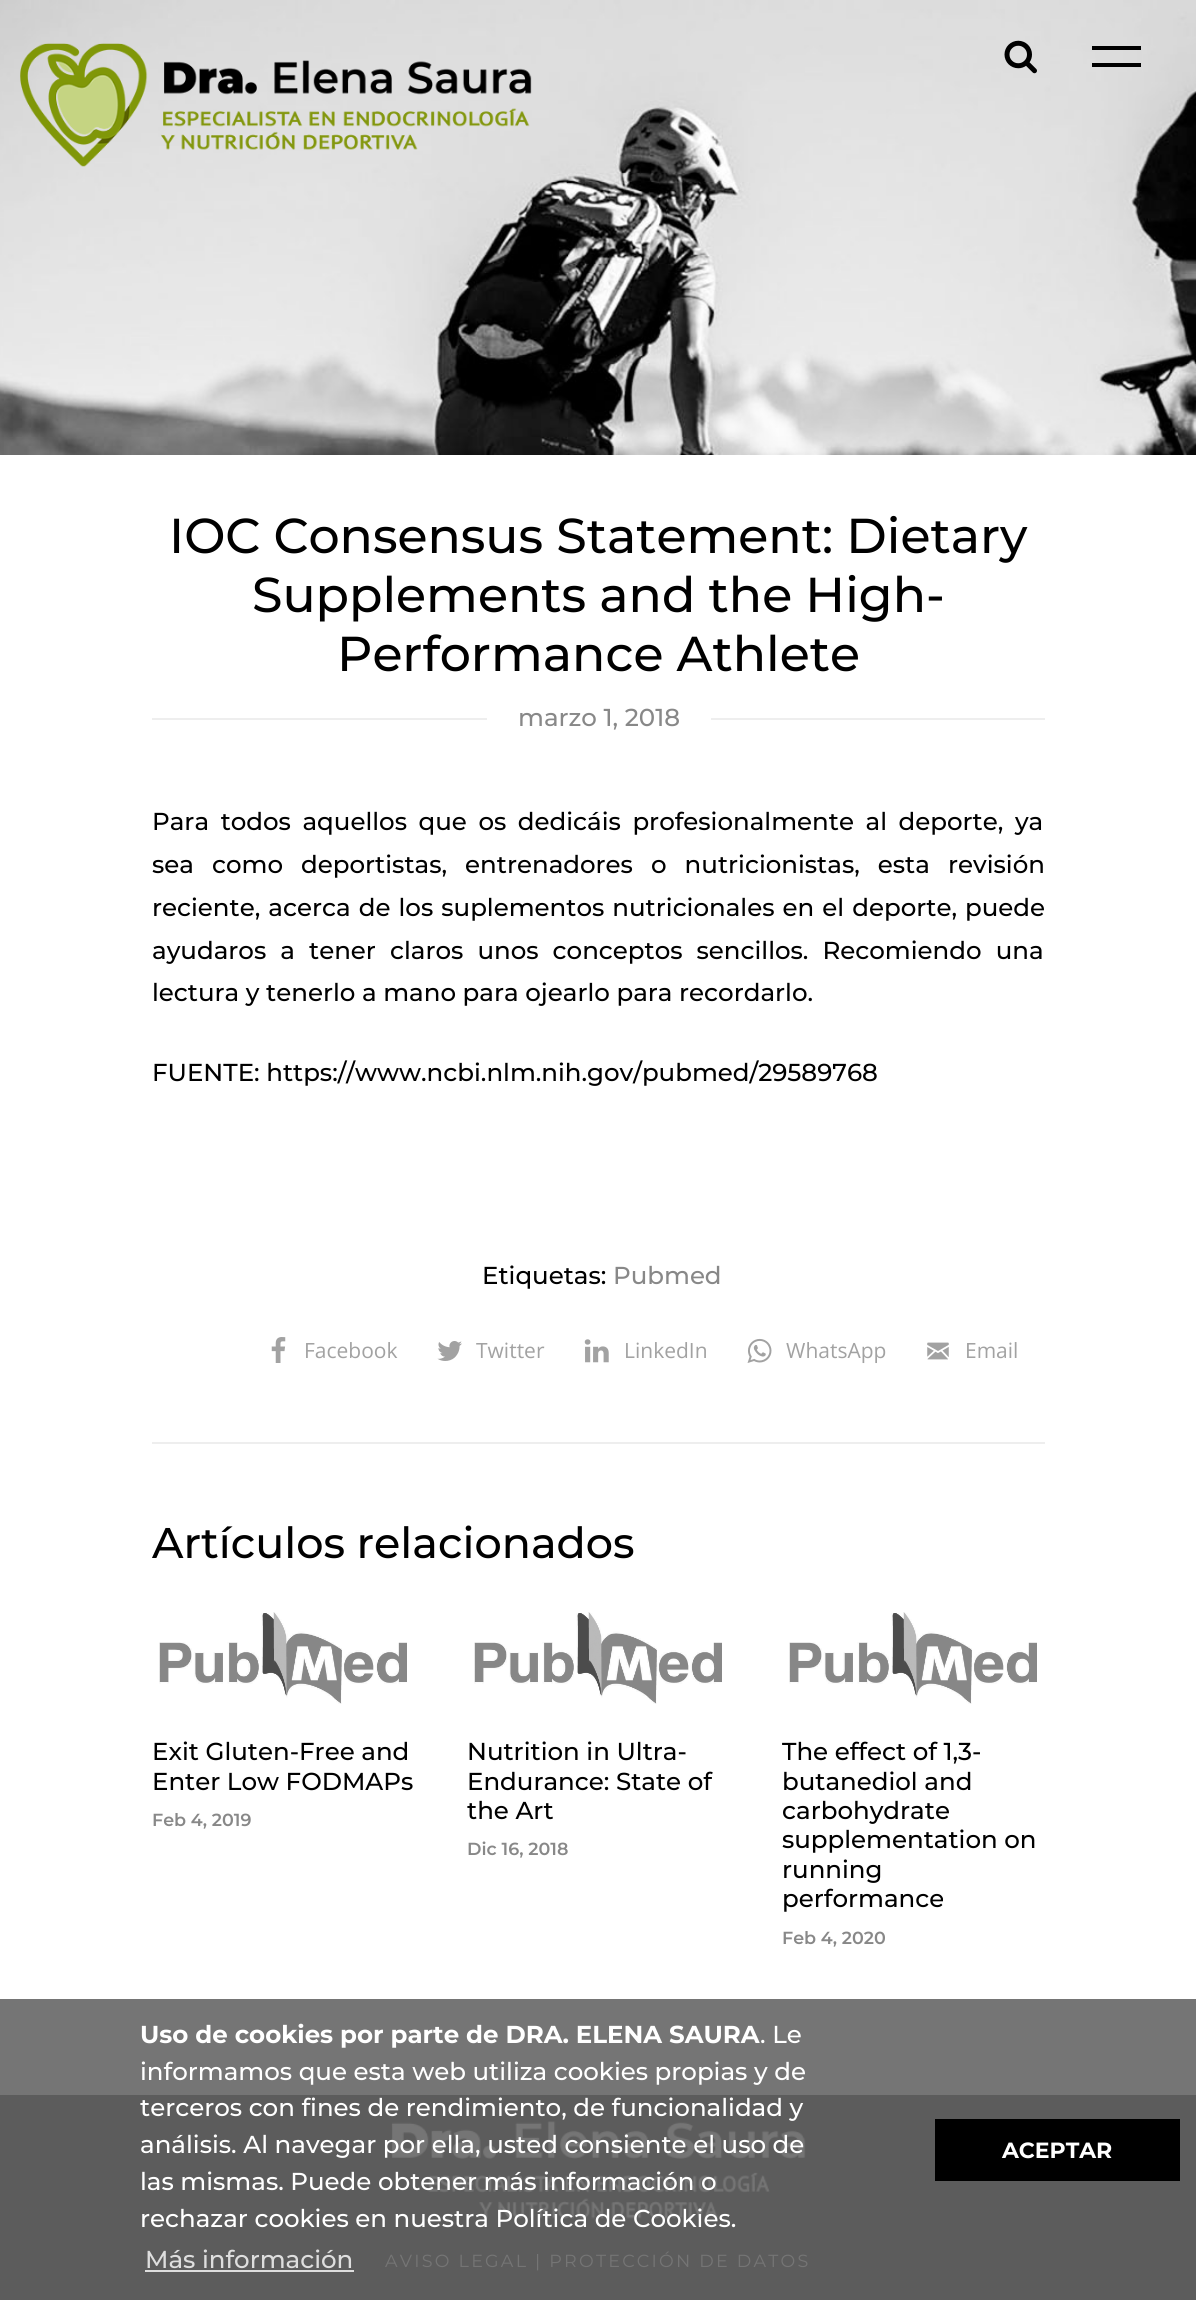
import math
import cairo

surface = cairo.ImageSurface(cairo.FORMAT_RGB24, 1196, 2300)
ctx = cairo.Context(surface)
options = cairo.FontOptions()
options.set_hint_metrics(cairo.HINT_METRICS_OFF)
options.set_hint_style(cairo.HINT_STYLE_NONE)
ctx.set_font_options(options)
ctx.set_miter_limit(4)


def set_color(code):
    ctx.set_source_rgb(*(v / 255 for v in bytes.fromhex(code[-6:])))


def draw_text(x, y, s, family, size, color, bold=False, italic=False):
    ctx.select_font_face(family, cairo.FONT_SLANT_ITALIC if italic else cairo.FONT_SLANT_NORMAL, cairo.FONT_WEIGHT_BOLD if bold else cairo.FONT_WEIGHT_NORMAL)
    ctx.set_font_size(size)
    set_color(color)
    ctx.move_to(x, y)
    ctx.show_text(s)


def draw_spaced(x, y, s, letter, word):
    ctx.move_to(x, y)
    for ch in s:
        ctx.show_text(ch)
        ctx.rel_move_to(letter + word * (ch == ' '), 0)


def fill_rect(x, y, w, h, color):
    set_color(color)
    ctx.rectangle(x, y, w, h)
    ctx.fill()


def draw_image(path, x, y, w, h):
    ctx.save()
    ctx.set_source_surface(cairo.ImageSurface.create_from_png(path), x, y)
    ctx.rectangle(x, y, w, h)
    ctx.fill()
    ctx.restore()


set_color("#ffffff")
ctx.paint()
fill_rect(0, 1999, 1196, 96, "#757575")
draw_image("assets/img3.png", 0, 0, 1196, 455)
draw_image("assets/img1.png", 20, 43, 512, 124)
draw_image("assets/img2.png", 1004, 40, 33, 34)
fill_rect(1092, 46, 49, 4, "#000000")
fill_rect(1092, 63, 49, 4, "#000000")
draw_text(169, 553, "IOC Consensus Statement: Dietary", "Montserrat Medium", 49, "#000000")
draw_text(252, 612, "Supplements and the High-", "Montserrat Medium", 49, "#000000")
draw_text(337, 671, "Performance Athlete", "Montserrat Medium", 49, "#000000")
fill_rect(152, 718, 335, 2, "#eeeeee")
draw_text(518, 726, "marzo 1, 2018", "Montserrat Medium", 24.5, "#888888")
fill_rect(711, 718, 334, 2, "#eeeeee")
set_color("#000000")
draw_spaced(152, 830, "Para todos aquellos que os dedicáis profesionalmente al deporte, ya", 0, 5)
draw_spaced(152, 873, "sea como deportistas, entrenadores o nutricionistas, esta revisión", 0, 11.5)
draw_spaced(152, 916, "reciente, acerca de los suplementos nutricionales en el deporte, puede", 0, 1.5)
draw_spaced(152, 959, "ayudaros a tener claros unos conceptos sencillos. Recomiendo una", 0, 7.5)
draw_text(152, 1001, "lectura y tenerlo a mano para ojearlo para recordarlo.", "Montserrat Medium", 24.5, "#000000")
draw_text(152, 1081, "FUENTE: https://www.ncbi.nlm.nih.gov/pubmed/29589768", "Montserrat Medium", 24.5, "#000000")
fill_rect(152, 1442, 893, 2, "#eeeeee")
draw_text(482, 1284, "Etiquetas:", "Montserrat Medium", 24.5, "#000000")
draw_text(613, 1284, "Pubmed", "Montserrat Medium", 24.5, "#888888")
draw_image("assets/img4.png", 271, 1337, 15, 26)
draw_text(304, 1358, "Facebook", "Open Sans", 21, "#a2a2a2")
draw_image("assets/img5.png", 437, 1341, 25, 20)
draw_text(476, 1358, "Twitter", "Open Sans", 21, "#a2a2a2")
draw_image("assets/img6.png", 584, 1339, 25, 24)
draw_text(624, 1358, "LinkedIn", "Open Sans", 21, "#a2a2a2")
draw_image("assets/img7.png", 747, 1338, 25, 25)
draw_text(786, 1358, "WhatsApp", "Open Sans", 21, "#a2a2a2")
draw_image("assets/img8.png", 927, 1342, 22, 18)
draw_text(965, 1358, "Email", "Open Sans", 21, "#a2a2a2")
draw_text(152, 1558, "Artículos relacionados", "Montserrat Medium", 42.9, "#000000")
draw_image("assets/img9.png", 159, 1612, 248, 92)
draw_text(152, 1760, "Exit Gluten-Free and", "Montserrat Medium", 24.5, "#000000")
draw_text(152, 1790, "Enter Low FODMAPs", "Montserrat Medium", 24.5, "#000000")
draw_text(152, 1826, "Feb 4, 2019", "Montserrat SemiBold", 17.5, "#888888")
draw_image("assets/img9.png", 474, 1612, 248, 92)
draw_text(467, 1760, "Nutrition in Ultra-", "Montserrat Medium", 24.5, "#000000")
draw_text(467, 1790, "Endurance: State of", "Montserrat Medium", 24.5, "#000000")
draw_text(467, 1819, "the Art", "Montserrat Medium", 24.5, "#000000")
draw_text(467, 1855, "Dic 16, 2018", "Montserrat SemiBold", 17.5, "#888888")
draw_image("assets/img9.png", 789, 1612, 248, 92)
draw_text(782, 1760, "The effect of 1,3-", "Montserrat Medium", 24.5, "#000000")
draw_text(782, 1790, "butanediol and", "Montserrat Medium", 24.5, "#000000")
draw_text(782, 1819, "carbohydrate", "Montserrat Medium", 24.5, "#000000")
draw_text(782, 1848, "supplementation on", "Montserrat Medium", 24.5, "#000000")
draw_text(782, 1878, "running", "Montserrat Medium", 24.5, "#000000")
draw_text(782, 1907, "performance", "Montserrat Medium", 24.5, "#000000")
draw_text(782, 1944, "Feb 4, 2020", "Montserrat SemiBold", 17.5, "#888888")
fill_rect(0, 2095, 1196, 205, "#5c5c5c")
draw_image("assets/img10.png", 391, 2121, 415, 98)
ctx.select_font_face("Montserrat")
set_color("#757575")
draw_spaced(385, 2267, "AVISO LEGAL | PROTECCIÓN DE DATOS", 2.25, 0)
draw_text(140, 2043, "Uso de cookies por parte de DRA. ELENA SAURA", "Montserrat", 24.5, "#ffffff", bold=True)
draw_text(760, 2043, ". Le", "Montserrat Medium", 24.5, "#ffffff")
draw_text(140, 2080, "informamos que esta web utiliza cookies propias y de", "Montserrat Medium", 24.5, "#ffffff")
draw_text(140, 2116, "terceros con fines de rendimiento, de funcionalidad y", "Montserrat Medium", 24.5, "#ffffff")
draw_text(140, 2153, "análisis. Al navegar por ella, usted consiente el uso de", "Montserrat Medium", 24.5, "#ffffff")
draw_text(140, 2190, "las mismas. Puede obtener más información o", "Montserrat Medium", 24.5, "#ffffff")
draw_text(140, 2227, "rechazar cookies en nuestra Política de Cookies.", "Montserrat Medium", 24.5, "#ffffff")
draw_text(145, 2268, "Más información", "Montserrat Medium", 24.5, "#dedede")
fill_rect(145, 2270, 209, 2, "#dedede")
fill_rect(935, 2119, 245, 62, "#000000")
draw_text(1002, 2158, "ACEPTAR", "Montserrat", 22, "#ffffff", bold=True)
surface.write_to_png("output.png")
